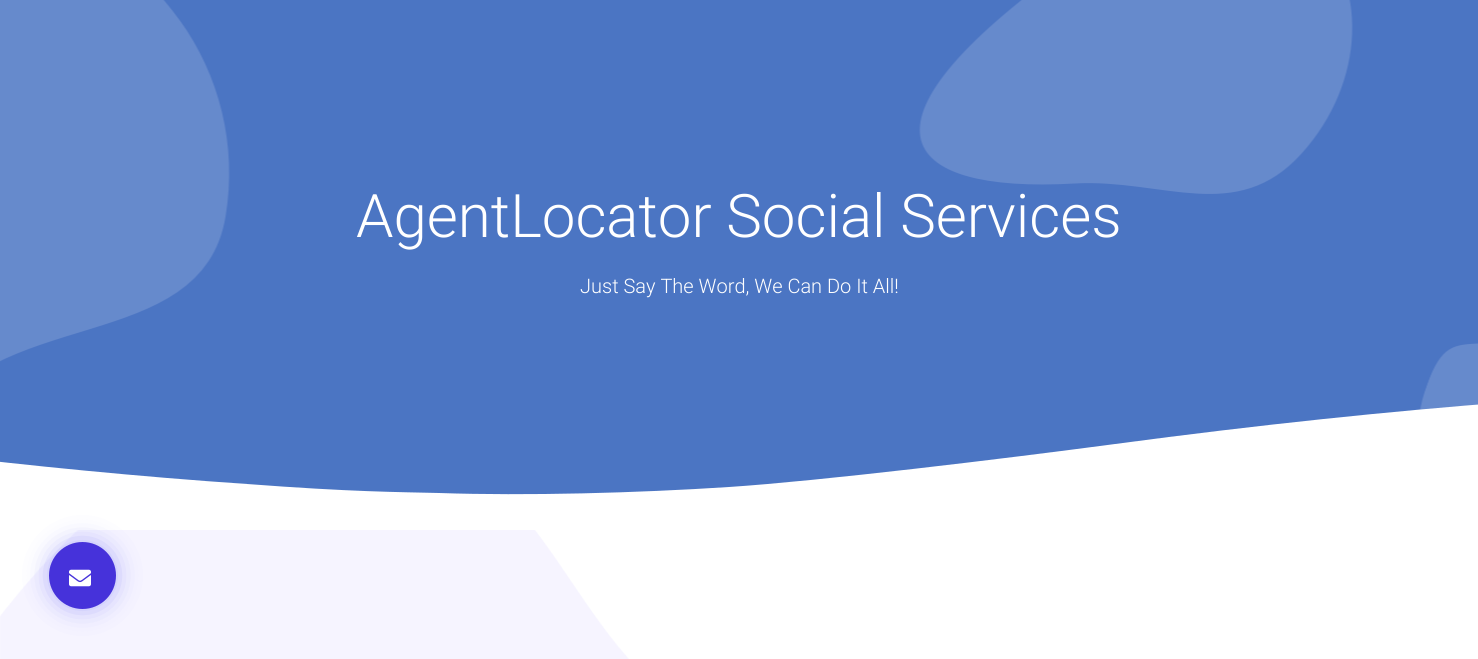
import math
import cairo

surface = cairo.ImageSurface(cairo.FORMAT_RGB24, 1478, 659)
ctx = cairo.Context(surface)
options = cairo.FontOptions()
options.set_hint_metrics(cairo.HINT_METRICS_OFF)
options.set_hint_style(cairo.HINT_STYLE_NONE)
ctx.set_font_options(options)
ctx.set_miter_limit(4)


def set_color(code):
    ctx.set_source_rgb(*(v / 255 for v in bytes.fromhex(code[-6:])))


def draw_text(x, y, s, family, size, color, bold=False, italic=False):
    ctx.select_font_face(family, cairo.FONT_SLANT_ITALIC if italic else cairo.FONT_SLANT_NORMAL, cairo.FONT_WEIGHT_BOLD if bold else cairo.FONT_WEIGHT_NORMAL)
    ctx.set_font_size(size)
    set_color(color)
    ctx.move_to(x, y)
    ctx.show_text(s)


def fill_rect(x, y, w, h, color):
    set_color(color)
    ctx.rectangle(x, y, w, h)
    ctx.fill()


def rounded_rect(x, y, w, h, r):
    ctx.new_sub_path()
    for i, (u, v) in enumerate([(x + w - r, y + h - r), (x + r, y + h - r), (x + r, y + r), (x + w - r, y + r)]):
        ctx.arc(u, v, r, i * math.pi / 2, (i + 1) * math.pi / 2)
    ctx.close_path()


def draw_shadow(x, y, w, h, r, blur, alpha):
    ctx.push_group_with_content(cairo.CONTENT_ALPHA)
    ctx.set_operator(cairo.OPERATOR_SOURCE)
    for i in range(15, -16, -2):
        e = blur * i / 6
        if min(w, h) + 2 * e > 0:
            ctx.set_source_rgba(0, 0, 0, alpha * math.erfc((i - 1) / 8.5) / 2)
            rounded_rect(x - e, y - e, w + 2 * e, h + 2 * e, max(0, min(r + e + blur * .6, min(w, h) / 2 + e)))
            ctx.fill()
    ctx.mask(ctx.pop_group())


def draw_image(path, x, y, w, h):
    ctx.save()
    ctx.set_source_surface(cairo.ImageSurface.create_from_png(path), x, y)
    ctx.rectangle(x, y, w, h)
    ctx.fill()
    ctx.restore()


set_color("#ffffff")
ctx.paint()
fill_rect(0, 0, 1478, 495, "#4b75c3")
draw_image("assets/img1.png", 0, 0, 1478, 410)
draw_text(356, 237, "AgentLocator Social Services", "Roboto Light", 60, "#ffffff")
draw_text(580, 293, "Just Say The Word, We Can Do It All!", "Roboto Light", 20, "#ffffff")
draw_image("assets/img3.png", 0, 530, 629, 129)
set_color("#3538f0")
draw_shadow(49, 542, 67, 67, 33.5, 12.5, 0.35)
set_color("#4632da")
ctx.arc(82.5, 575.5, 33.5, 0, 2 * math.pi)
ctx.fill()
draw_image("assets/img2.png", 69, 569, 22, 18)
set_color("#ffffff")
ctx.new_path()
ctx.move_to(439, 493)
ctx.curve_to(526, 496, 637, 493, 729, 487)
ctx.curve_to(820, 481, 1002, 459, 1115, 444)
ctx.curve_to(1407, 405, 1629, 391, 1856, 384)
ctx.curve_to(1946, 382, 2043, 380, 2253, 387)
ctx.curve_to(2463, 395, 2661, 418, 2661, 418)
ctx.line_to(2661, 501)
ctx.line_to(-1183, 501)
ctx.line_to(-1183, 465)
ctx.curve_to(-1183, 465, -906, 426, -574, 428)
ctx.curve_to(-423, 429, -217, 436, -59, 455)
ctx.curve_to(22, 465, 142, 477, 247, 484)
ctx.curve_to(352, 492, 399, 492, 439, 493)
ctx.close_path()
ctx.fill()
surface.write_to_png("output.png")
